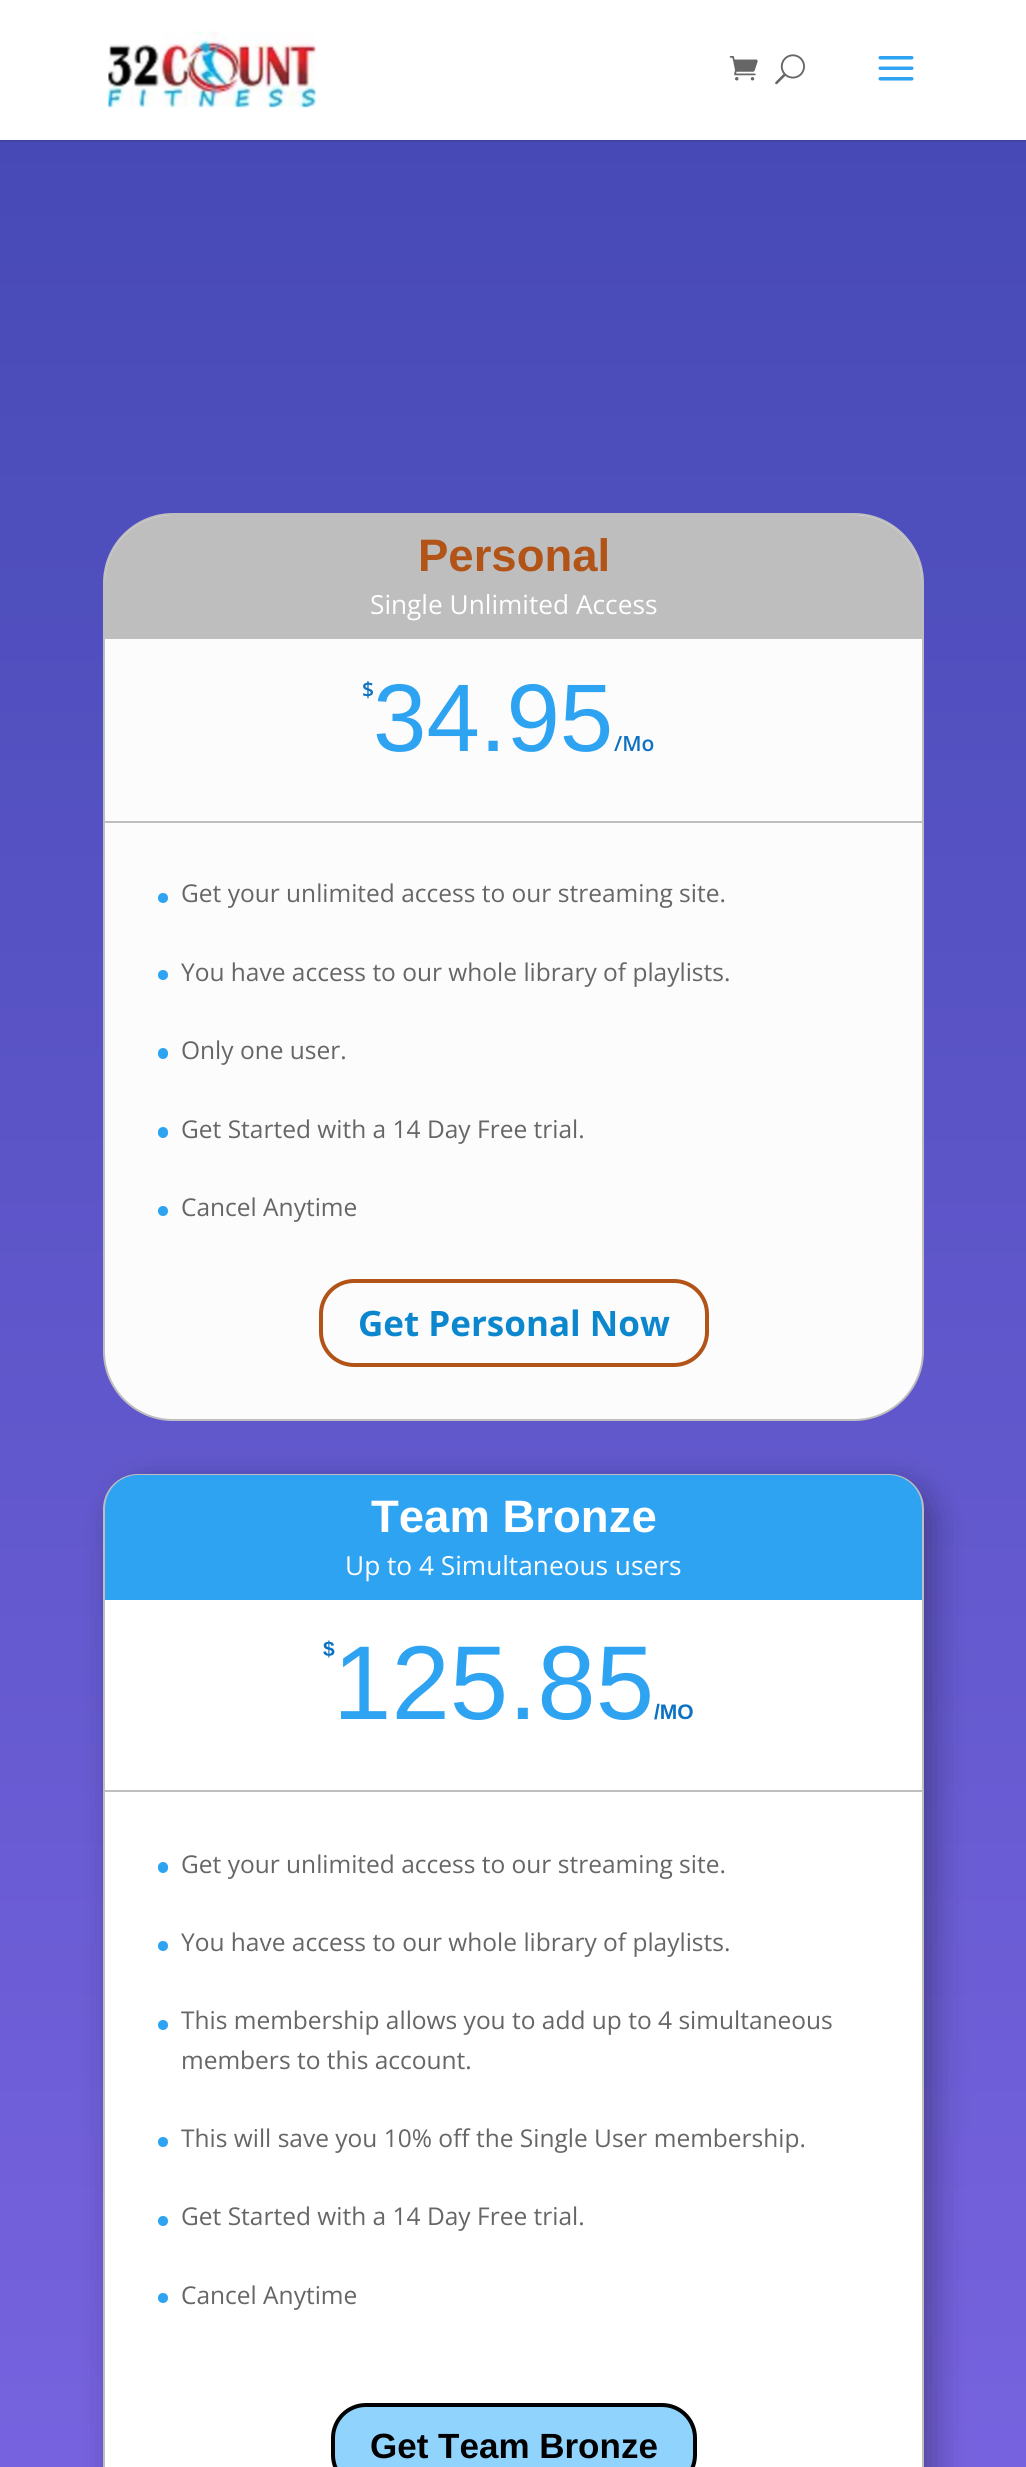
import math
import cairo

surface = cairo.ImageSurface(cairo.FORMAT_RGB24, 1026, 2467)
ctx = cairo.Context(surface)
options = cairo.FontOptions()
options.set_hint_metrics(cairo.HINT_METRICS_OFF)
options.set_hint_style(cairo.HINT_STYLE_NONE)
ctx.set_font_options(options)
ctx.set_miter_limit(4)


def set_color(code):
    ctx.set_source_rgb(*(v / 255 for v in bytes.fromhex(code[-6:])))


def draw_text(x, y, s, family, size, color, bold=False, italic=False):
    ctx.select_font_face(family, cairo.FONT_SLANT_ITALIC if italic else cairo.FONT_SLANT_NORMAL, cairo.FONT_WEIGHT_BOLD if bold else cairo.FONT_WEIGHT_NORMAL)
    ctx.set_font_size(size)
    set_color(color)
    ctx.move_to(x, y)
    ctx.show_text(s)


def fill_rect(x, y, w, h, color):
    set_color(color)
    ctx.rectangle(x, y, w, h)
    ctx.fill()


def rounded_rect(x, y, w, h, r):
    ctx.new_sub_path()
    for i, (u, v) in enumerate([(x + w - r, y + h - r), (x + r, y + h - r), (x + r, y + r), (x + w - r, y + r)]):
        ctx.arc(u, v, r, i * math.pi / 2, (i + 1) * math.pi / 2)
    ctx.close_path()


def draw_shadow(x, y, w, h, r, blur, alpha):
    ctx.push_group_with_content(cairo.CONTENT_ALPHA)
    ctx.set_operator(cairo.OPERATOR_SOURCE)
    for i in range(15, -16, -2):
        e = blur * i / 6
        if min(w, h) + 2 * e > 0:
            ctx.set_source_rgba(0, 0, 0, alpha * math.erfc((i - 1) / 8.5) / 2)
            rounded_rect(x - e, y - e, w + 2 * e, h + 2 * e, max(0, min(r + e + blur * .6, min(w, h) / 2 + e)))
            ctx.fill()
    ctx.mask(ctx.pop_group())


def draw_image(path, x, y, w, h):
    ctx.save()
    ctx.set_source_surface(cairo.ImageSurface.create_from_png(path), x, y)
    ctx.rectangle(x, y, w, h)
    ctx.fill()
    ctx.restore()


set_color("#ffffff")
ctx.paint()
fill_rect(0, 140, 1026, 2, "#4043a4")
draw_image("assets/img1.png", 108, 31, 208, 77)
draw_image("assets/img2.png", 729, 56, 29, 25)
draw_image("assets/img3.png", 775, 54, 30, 31)
draw_image("assets/img4.png", 878, 56, 36, 25)
gradient = cairo.LinearGradient(514, 138, 514, 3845)
gradient.add_color_stop_rgba(0, 0.278, 0.29, 0.714, 1)
gradient.add_color_stop_rgba(1, 0.573, 0.443, 0.965, 1)
ctx.set_source(gradient)
ctx.rectangle(0, 142, 1026, 2325)
ctx.fill()
set_color("#fcfcfc")
rounded_rect(104, 514, 819, 906, 69)
ctx.fill_preserve()
set_color("#bebebe")
ctx.stroke()
ctx.new_path()
ctx.move_to(173, 515)
ctx.line_to(854, 515)
ctx.curve_to(891.5, 515, 922, 545.5, 922, 583)
ctx.line_to(922, 639)
ctx.line_to(105, 639)
ctx.line_to(105, 583)
ctx.curve_to(105, 545.5, 135.5, 515, 173, 515)
ctx.close_path()
ctx.fill()
draw_text(418, 571, "Personal", "Liberation Sans", 45.5, "#b25318", bold=True)
draw_text(370, 614, "Single Unlimited Access", "Open Sans", 26.25, "#ffffff")
fill_rect(105, 821, 817, 2, "#bebebe")
draw_text(362, 697, "$", "Open Sans SemiBold", 21, "#0c71c3")
draw_text(373, 751, "34.95", "Liberation Sans", 96, "#2ea3f2")
draw_text(614, 751, "/Mo", "Open Sans SemiBold", 21, "#0c71c3")
set_color("#2ea3f2")
ctx.new_path()
ctx.arc(163, 898, 5, 0, 2 * math.pi)
ctx.fill()
draw_text(181, 902, "Get your unlimited access to our streaming site.", "Open Sans", 24.5, "#666666")
set_color("#2ea3f2")
ctx.new_path()
ctx.arc(163, 975, 5, 0, 2 * math.pi)
ctx.fill()
draw_text(181, 981, "You have access to our whole library of playlists.", "Open Sans", 24.5, "#666666")
set_color("#2ea3f2")
rounded_rect(158, 1048, 10, 11, 5)
ctx.fill()
draw_text(181, 1059, "Only one user.", "Open Sans", 24.5, "#666666")
set_color("#2ea3f2")
rounded_rect(158, 1127, 10, 11, 5)
ctx.fill()
draw_text(181, 1138, "Get Started with a 14 Day Free trial.", "Open Sans", 24.5, "#666666")
set_color("#2ea3f2")
ctx.new_path()
ctx.arc(163, 1211, 5, 0, 2 * math.pi)
ctx.fill()
draw_text(181, 1216, "Cancel Anytime", "Open Sans", 24.5, "#666666")
rounded_rect(321, 1281, 386, 84, 33)
set_color("#b25318")
ctx.set_line_width(4)
ctx.stroke()
draw_text(358, 1336, "Get Personal Now", "Open Sans", 35, "#0c87ce", bold=True)
set_color("#000000")
draw_shadow(114, 1484, 821, 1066, 35, 16, 0.3)
set_color("#ffffff")
rounded_rect(104, 1475, 819, 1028, 34)
ctx.fill_preserve()
set_color("#bebebe")
ctx.set_line_width(2)
ctx.stroke()
set_color("#2ea3f2")
ctx.new_path()
ctx.move_to(138, 1475)
ctx.line_to(889, 1475)
ctx.curve_to(907, 1475, 922, 1490, 922, 1508)
ctx.line_to(922, 1600)
ctx.line_to(105, 1600)
ctx.line_to(105, 1508)
ctx.curve_to(105, 1490, 120, 1475, 138, 1475)
ctx.close_path()
ctx.fill()
draw_text(371, 1532, "Team Bronze", "Liberation Sans", 45.5, "#ffffff", bold=True)
draw_text(345, 1575, "Up to 4 Simultaneous users", "Open Sans", 26.25, "#ffffff")
fill_rect(105, 1790, 817, 2, "#bebebe")
draw_text(323, 1656, "$", "Liberation Sans", 21, "#0c71c3", bold=True)
draw_text(333, 1719, "125.85", "Liberation Sans", 105, "#2ea3f2")
draw_text(654, 1719, "/MO", "Liberation Sans", 21, "#0c71c3", bold=True)
set_color("#2ea3f2")
rounded_rect(158, 1862, 10, 11, 5)
ctx.fill()
draw_text(181, 1873, "Get your unlimited access to our streaming site.", "Open Sans", 24.5, "#666666")
set_color("#2ea3f2")
ctx.new_path()
ctx.arc(163, 1946, 5, 0, 2 * math.pi)
ctx.fill()
draw_text(181, 1951, "You have access to our whole library of playlists.", "Open Sans", 24.5, "#666666")
set_color("#2ea3f2")
ctx.new_path()
ctx.arc(163, 2025, 5, 0, 2 * math.pi)
ctx.fill()
draw_text(181, 2029, "This membership allows you to add up to 4 simultaneous", "Open Sans", 24.5, "#666666")
draw_text(181, 2069, "members to this account.", "Open Sans", 24.5, "#666666")
set_color("#2ea3f2")
ctx.new_path()
ctx.arc(163, 2142, 5, 0, 2 * math.pi)
ctx.fill()
draw_text(181, 2147, "This will save you 10% off the Single User membership.", "Open Sans", 24.5, "#666666")
set_color("#2ea3f2")
ctx.new_path()
ctx.arc(163, 2221, 5, 0, 2 * math.pi)
ctx.fill()
draw_text(181, 2225, "Get Started with a 14 Day Free trial.", "Open Sans", 24.5, "#666666")
set_color("#2ea3f2")
ctx.new_path()
ctx.arc(163, 2298, 5, 0, 2 * math.pi)
ctx.fill()
draw_text(181, 2304, "Cancel Anytime", "Open Sans", 24.5, "#666666")
set_color("#90d3fd")
rounded_rect(333, 2405, 362, 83, 33)
ctx.fill_preserve()
set_color("#000000")
ctx.set_line_width(4)
ctx.stroke()
draw_text(370, 2458, "Get Team Bronze", "Liberation Sans", 35, "#000000", bold=True)
surface.write_to_png("output.png")
